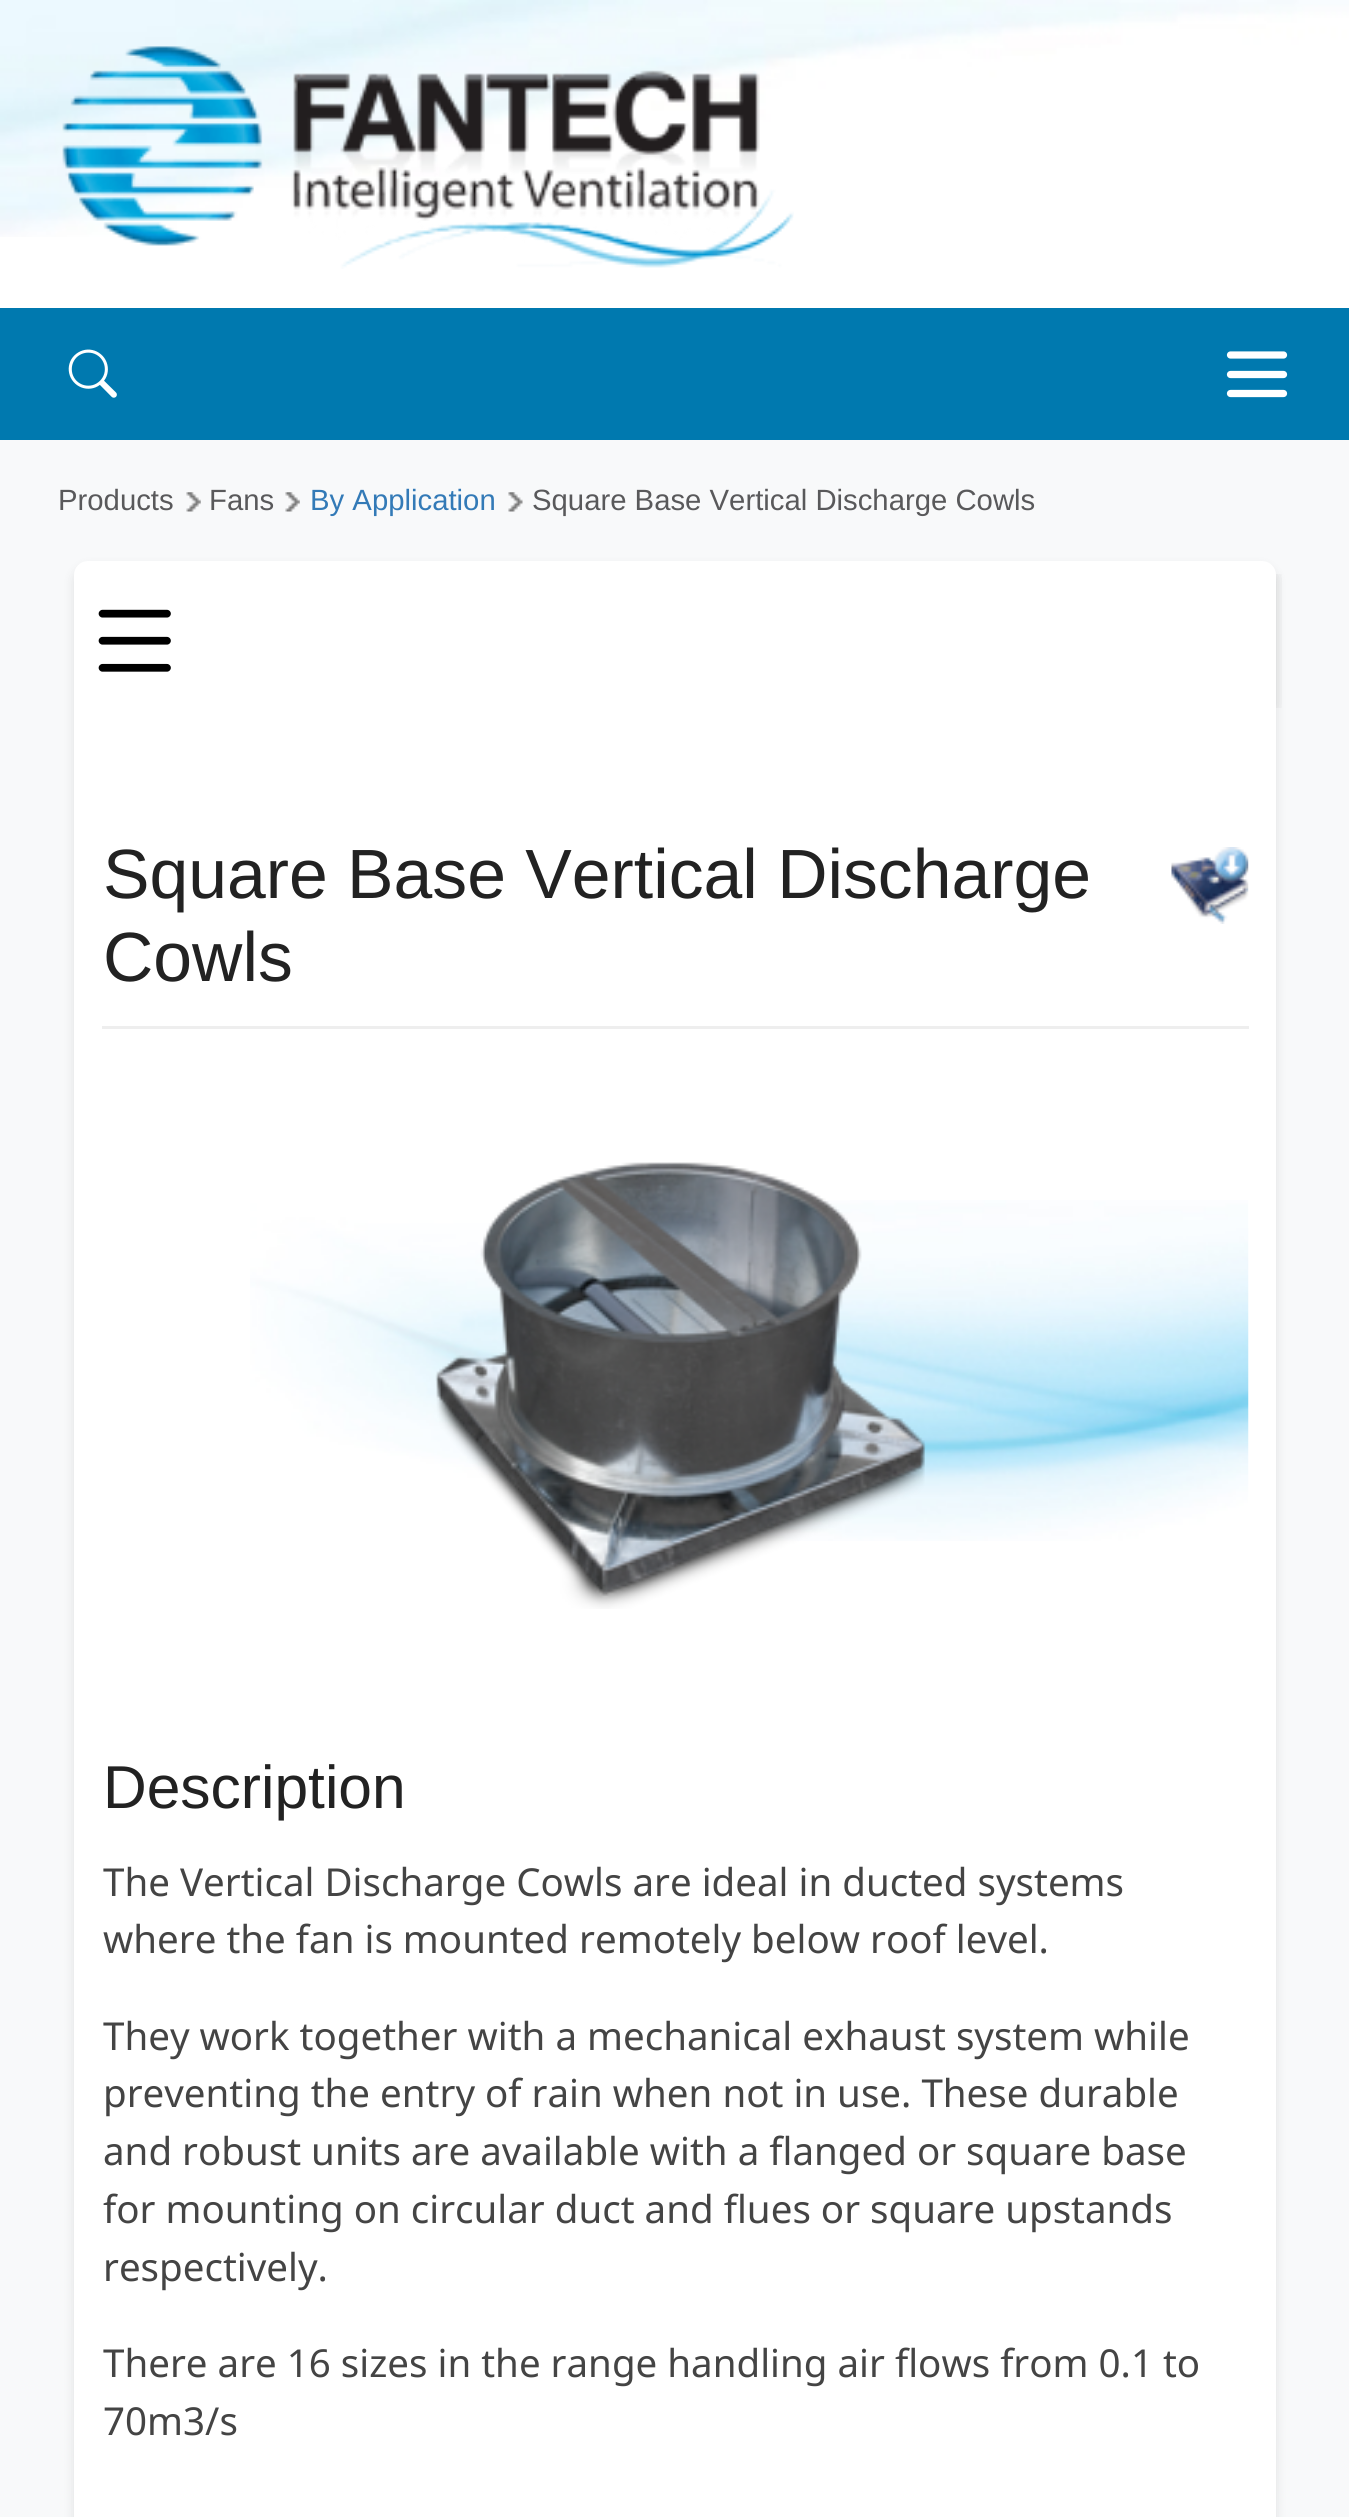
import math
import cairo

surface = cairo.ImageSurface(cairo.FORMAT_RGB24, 1349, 2517)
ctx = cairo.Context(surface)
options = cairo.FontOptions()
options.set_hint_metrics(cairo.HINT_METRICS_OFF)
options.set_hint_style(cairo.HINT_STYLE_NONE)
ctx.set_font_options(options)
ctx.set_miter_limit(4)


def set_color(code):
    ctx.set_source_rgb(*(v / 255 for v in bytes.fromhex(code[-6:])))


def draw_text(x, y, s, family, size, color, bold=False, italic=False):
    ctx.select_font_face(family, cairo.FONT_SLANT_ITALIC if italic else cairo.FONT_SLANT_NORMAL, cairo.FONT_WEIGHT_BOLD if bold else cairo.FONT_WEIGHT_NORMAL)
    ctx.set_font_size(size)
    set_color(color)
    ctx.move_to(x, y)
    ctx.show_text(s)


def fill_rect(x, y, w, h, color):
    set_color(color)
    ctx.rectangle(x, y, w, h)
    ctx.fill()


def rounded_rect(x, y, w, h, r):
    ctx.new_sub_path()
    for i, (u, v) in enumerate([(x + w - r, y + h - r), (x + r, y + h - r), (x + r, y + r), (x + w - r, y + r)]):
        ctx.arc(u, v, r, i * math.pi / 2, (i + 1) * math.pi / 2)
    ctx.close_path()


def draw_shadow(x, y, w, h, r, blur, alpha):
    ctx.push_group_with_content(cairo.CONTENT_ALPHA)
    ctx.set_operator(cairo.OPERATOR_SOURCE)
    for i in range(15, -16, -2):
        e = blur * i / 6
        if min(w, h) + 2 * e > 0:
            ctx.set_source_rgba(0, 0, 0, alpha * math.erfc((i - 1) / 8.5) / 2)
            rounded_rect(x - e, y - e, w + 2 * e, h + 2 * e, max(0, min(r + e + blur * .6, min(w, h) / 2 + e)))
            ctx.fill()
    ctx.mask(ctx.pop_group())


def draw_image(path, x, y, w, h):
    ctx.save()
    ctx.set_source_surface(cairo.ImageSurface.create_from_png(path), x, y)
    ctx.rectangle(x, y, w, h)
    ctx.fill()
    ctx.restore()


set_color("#ffffff")
ctx.paint()
draw_image("assets/img1.png", 0, 0, 1349, 237)
draw_image("assets/img2.png", 62, 46, 732, 223)
fill_rect(0, 308, 1349, 132, "#0079af")
draw_image("assets/img3.png", 68, 349, 49, 49)
ctx.new_path()
ctx.move_to(1230.5, 355)
ctx.line_to(1283.5, 355)
ctx.move_to(1230.5, 374.5)
ctx.line_to(1283.5, 374.5)
ctx.move_to(1230.5, 393.5)
ctx.line_to(1283.5, 393.5)
set_color("#ffffff")
ctx.set_line_width(7.2)
ctx.set_line_cap(cairo.LINE_CAP_ROUND)
ctx.stroke()
fill_rect(0, 440, 1349, 2077, "#f8f9fa")
draw_text(58, 510, "Products", "Liberation Sans", 29.3, "#59595b")
draw_image("assets/img4.png", 186, 492, 15, 20)
draw_text(209, 510, "Fans", "Liberation Sans", 29.3, "#59595b")
draw_image("assets/img4.png", 285, 492, 15, 20)
draw_text(310, 510, "By Application", "Liberation Sans", 29.3, "#337ab7")
draw_image("assets/img5.png", 508, 492, 15, 20)
draw_text(532, 510, "Square Base Vertical Discharge Cowls", "Liberation Sans", 29.3, "#59595b")
set_color("#000000")
draw_shadow(74, 567, 1202, 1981, 14, 5.5, 0.1)
set_color("#ffffff")
rounded_rect(74, 561, 1202, 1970, 14)
ctx.fill()
ctx.save()
ctx.rectangle(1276, 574, 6, 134)
ctx.clip()
set_color("#000000")
draw_shadow(102, 575, 1174, 132, 0, 7, 0.1)
ctx.restore()
draw_image("assets/img6.png", 98, 609, 73, 63)
fill_rect(102, 1026, 1147, 3, "#eeeeee")
draw_text(103, 898, "Square Base Vertical Discharge", "Liberation Sans", 69.7, "#222222")
draw_text(103, 981, "Cowls", "Liberation Sans", 69.7, "#222222")
draw_image("assets/img7.png", 1171, 847, 78, 77)
draw_image("assets/img8.png", 250, 1200, 999, 341)
draw_image("assets/img9.png", 435, 1162, 491, 447)
draw_text(103, 1808, "Description", "Liberation Sans", 60.5, "#222222")
draw_text(103, 1896, "The Vertical Discharge Cowls are ideal in ducted systems", "Noto Sans", 38.5, "#444444")
draw_text(103, 1953, "where the fan is mounted remotely below roof level.", "Noto Sans", 38.5, "#444444")
draw_text(103, 2050, "They work together with a mechanical exhaust system while", "Noto Sans", 38.5, "#444444")
draw_text(103, 2107, "preventing the entry of rain when not in use. These durable", "Noto Sans", 38.5, "#444444")
draw_text(103, 2165, "and robust units are available with a flanged or square base", "Noto Sans", 38.5, "#444444")
draw_text(103, 2223, "for mounting on circular duct and flues or square upstands", "Noto Sans", 38.5, "#444444")
draw_text(103, 2281, "respectively.", "Noto Sans", 38.5, "#444444")
draw_text(103, 2377, "There are 16 sizes in the range handling air flows from 0.1 to", "Noto Sans", 38.5, "#444444")
draw_text(103, 2435, "70m3/s", "Noto Sans", 38.5, "#444444")
surface.write_to_png("output.png")
